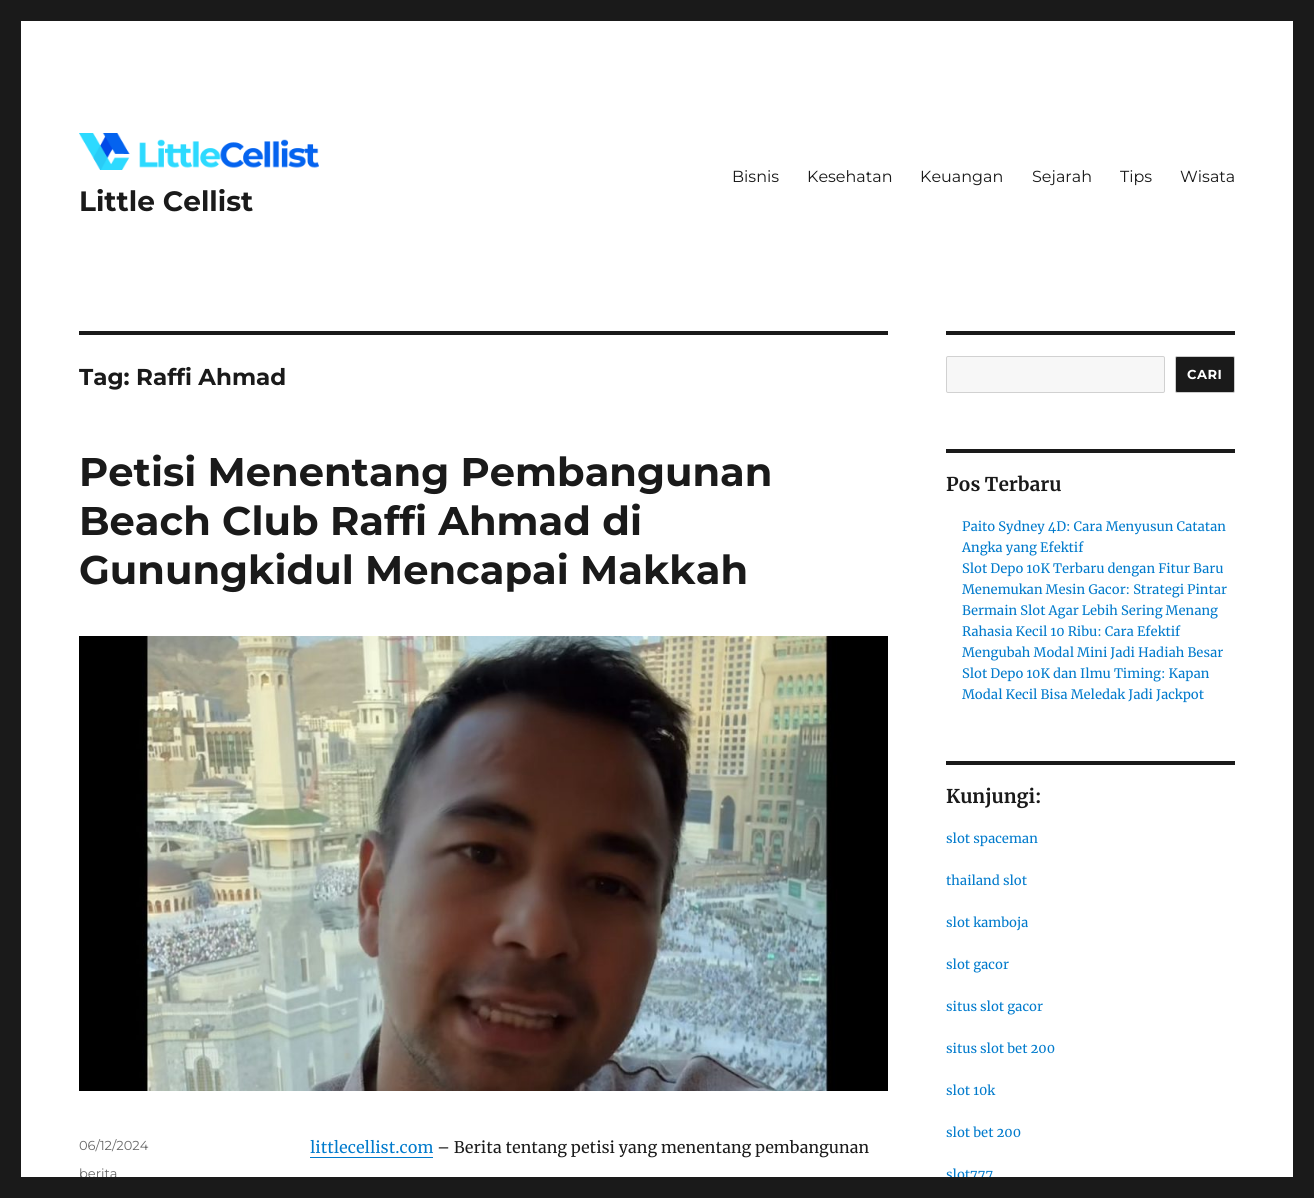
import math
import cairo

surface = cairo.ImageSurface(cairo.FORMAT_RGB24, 1314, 1198)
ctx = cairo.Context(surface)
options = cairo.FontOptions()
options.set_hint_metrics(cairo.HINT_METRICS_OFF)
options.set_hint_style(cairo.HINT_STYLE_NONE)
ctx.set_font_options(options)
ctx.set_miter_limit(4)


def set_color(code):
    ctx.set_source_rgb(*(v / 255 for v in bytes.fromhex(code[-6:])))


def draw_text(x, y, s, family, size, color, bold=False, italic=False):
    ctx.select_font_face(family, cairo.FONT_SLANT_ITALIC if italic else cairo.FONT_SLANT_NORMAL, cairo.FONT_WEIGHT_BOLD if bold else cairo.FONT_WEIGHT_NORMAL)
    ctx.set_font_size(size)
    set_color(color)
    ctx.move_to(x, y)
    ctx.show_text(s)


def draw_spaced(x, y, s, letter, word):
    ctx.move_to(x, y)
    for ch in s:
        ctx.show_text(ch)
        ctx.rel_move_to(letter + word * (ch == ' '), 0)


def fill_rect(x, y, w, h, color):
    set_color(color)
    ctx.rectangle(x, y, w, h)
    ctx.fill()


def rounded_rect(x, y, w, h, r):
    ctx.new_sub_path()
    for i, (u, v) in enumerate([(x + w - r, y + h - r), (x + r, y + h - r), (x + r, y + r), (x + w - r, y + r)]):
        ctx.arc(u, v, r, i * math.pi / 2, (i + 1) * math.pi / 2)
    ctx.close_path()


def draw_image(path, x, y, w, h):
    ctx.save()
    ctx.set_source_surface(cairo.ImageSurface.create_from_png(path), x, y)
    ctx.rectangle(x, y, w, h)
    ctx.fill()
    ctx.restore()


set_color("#1a1a1a")
ctx.paint()
fill_rect(21, 21, 1272, 1156, "#ffffff")
draw_text(732, 182, "Bisnis", "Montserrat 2 Thin", 16, "#1a1a1a")
draw_text(807, 182, "Kesehatan", "Montserrat 2 Thin", 16, "#1a1a1a")
draw_text(920, 182, "Keuangan", "Montserrat 2 Thin", 16, "#1a1a1a")
draw_text(1032, 182, "Sejarah", "Montserrat 2 Thin", 16, "#1a1a1a")
draw_text(1120, 182, "Tips", "Montserrat 2 Thin", 16, "#1a1a1a")
draw_text(1180, 182, "Wisata", "Montserrat 2 Thin", 16, "#1a1a1a")
draw_image("assets/img1.png", 79, 133, 240, 37)
draw_text(79, 211, "Little Cellist", "Montserrat Thin", 28, "#1a1a1a")
fill_rect(79, 331, 809, 4, "#1a1a1a")
draw_text(79, 385, "Tag: Raffi Ahmad", "Montserrat Thin", 23, "#1a1a1a")
draw_text(79, 486, "Petisi Menentang Pembangunan", "Montserrat Thin", 40, "#1a1a1a")
draw_text(79, 535, "Beach Club Raffi Ahmad di", "Montserrat Thin", 40, "#1a1a1a")
draw_text(79, 584, "Gunungkidul Mencapai Makkah", "Montserrat Thin", 40, "#1a1a1a")
draw_image("assets/img2.png", 79, 636, 809, 455)
draw_text(79, 1150, "06/12/2024", "Montserrat 2 Thin", 13, "#686868")
draw_text(79, 1178, "berita", "Montserrat 2 Thin", 13, "#686868")
draw_text(310, 1153, "littlecellist.com", "Merriweather", 16, "#007acc")
fill_rect(310, 1157, 123, 1, "#007acc")
draw_text(437, 1153, "– Berita tentang petisi yang menentang pembangunan", "Merriweather", 16, "#1a1a1a")
fill_rect(946, 331, 289, 4, "#1a1a1a")
set_color("#f7f7f7")
rounded_rect(946.5, 356.5, 218, 36, 1.5)
ctx.fill_preserve()
set_color("#d1d1d1")
ctx.set_line_width(1)
ctx.stroke()
set_color("#1a1a1a")
rounded_rect(1175.5, 356.5, 59, 36, 1.5)
ctx.fill_preserve()
set_color("#cccccc")
ctx.stroke()
ctx.select_font_face("Montserrat Thin")
ctx.set_font_size(13)
set_color("#ffffff")
draw_spaced(1187, 379, "CARI", 0.5, 0)
fill_rect(946, 449, 289, 4, "#1a1a1a")
draw_text(946, 491, "Pos Terbaru", "Merriweather", 19, "#1a1a1a", bold=True)
draw_text(962, 531, "Paito Sydney 4D: Cara Menyusun Catatan", "Merriweather", 13, "#007acc")
draw_text(962, 552, "Angka yang Efektif", "Merriweather", 13, "#007acc")
draw_text(962, 573, "Slot Depo 10K Terbaru dengan Fitur Baru", "Merriweather", 13, "#007acc")
draw_text(962, 594, "Menemukan Mesin Gacor: Strategi Pintar", "Merriweather", 13, "#007acc")
draw_text(962, 615, "Bermain Slot Agar Lebih Sering Menang", "Merriweather", 13, "#007acc")
draw_text(962, 636, "Rahasia Kecil 10 Ribu: Cara Efektif", "Merriweather", 13, "#007acc")
draw_text(962, 657, "Mengubah Modal Mini Jadi Hadiah Besar", "Merriweather", 13, "#007acc")
draw_text(962, 678, "Slot Depo 10K dan Ilmu Timing: Kapan", "Merriweather", 13, "#007acc")
draw_text(962, 699, "Modal Kecil Bisa Meledak Jadi Jackpot", "Merriweather", 13, "#007acc")
fill_rect(946, 761, 289, 4, "#1a1a1a")
draw_text(946, 803, "Kunjungi:", "Merriweather", 19, "#1a1a1a", bold=True)
draw_text(946, 843, "slot spaceman", "Merriweather", 13, "#007acc")
draw_text(946, 885, "thailand slot", "Merriweather", 13, "#007acc")
draw_text(946, 927, "slot kamboja", "Merriweather", 13, "#007acc")
draw_text(946, 969, "slot gacor", "Merriweather", 13, "#007acc")
draw_text(946, 1011, "situs slot gacor", "Merriweather", 13, "#007acc")
draw_text(946, 1053, "situs slot bet 200", "Merriweather", 13, "#007acc")
draw_text(946, 1095, "slot 10k", "Merriweather", 13, "#007acc")
draw_text(946, 1137, "slot bet 200", "Merriweather", 13, "#007acc")
draw_text(946, 1179, "slot777", "Merriweather", 13, "#007acc")
fill_rect(80, 1177, 911, 5, "#1a1a1a")
surface.write_to_png("output.png")
